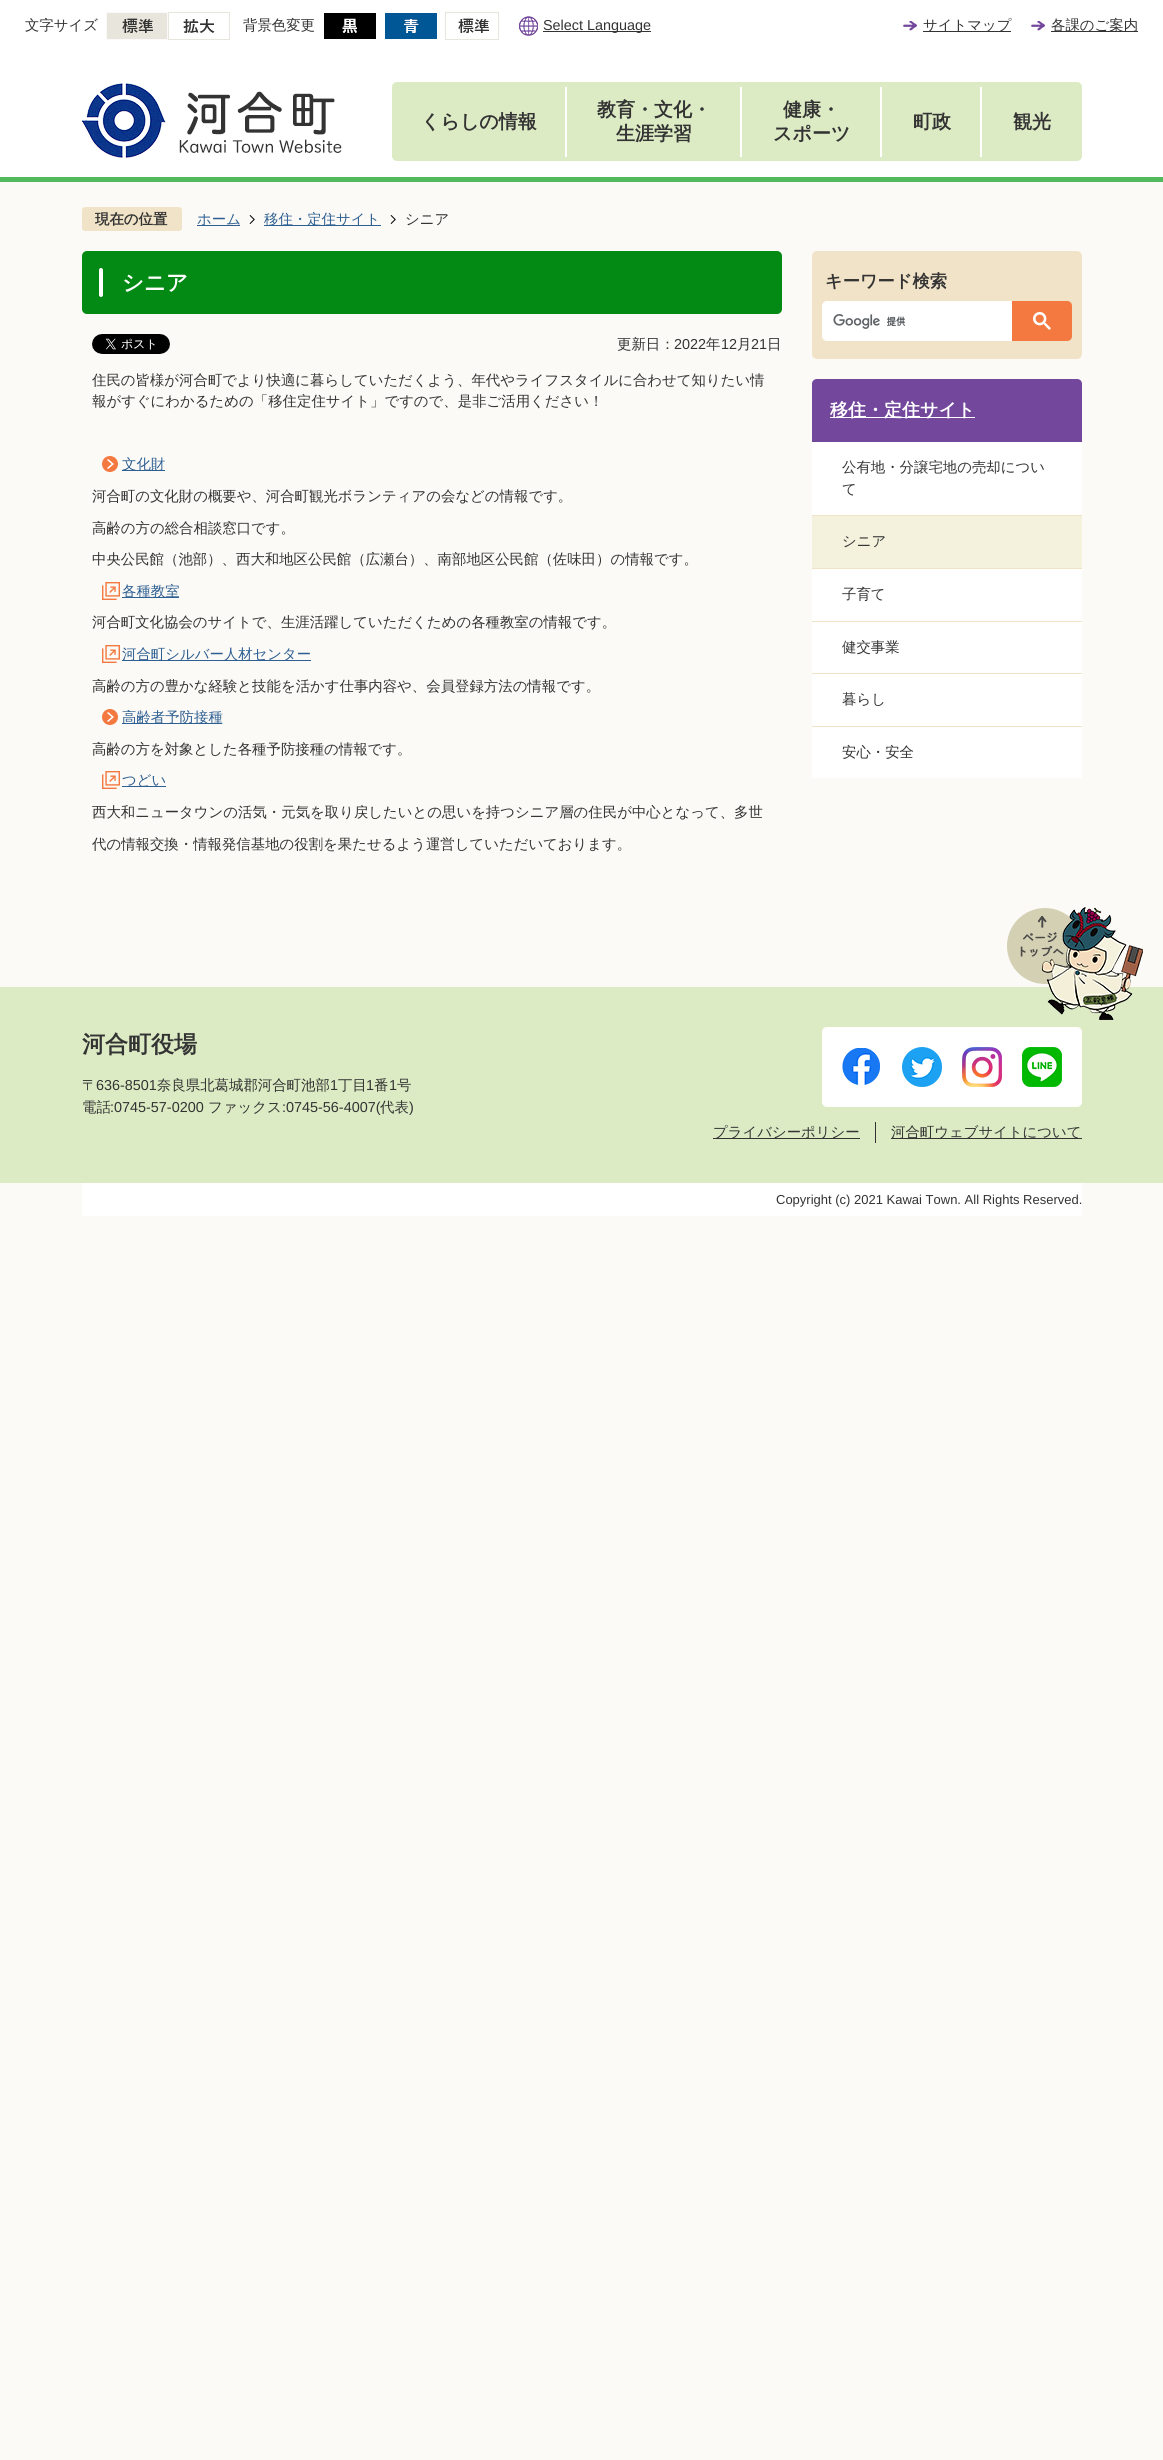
import math
import cairo

surface = cairo.ImageSurface(cairo.FORMAT_RGB24, 1163, 2460)
ctx = cairo.Context(surface)
options = cairo.FontOptions()
options.set_hint_metrics(cairo.HINT_METRICS_OFF)
options.set_hint_style(cairo.HINT_STYLE_NONE)
ctx.set_font_options(options)
ctx.set_miter_limit(4)


def set_color(code):
    ctx.set_source_rgb(*(v / 255 for v in bytes.fromhex(code[-6:])))


def draw_text(x, y, s, family, size, color, bold=False, italic=False):
    ctx.select_font_face(family, cairo.FONT_SLANT_ITALIC if italic else cairo.FONT_SLANT_NORMAL, cairo.FONT_WEIGHT_BOLD if bold else cairo.FONT_WEIGHT_NORMAL)
    ctx.set_font_size(size)
    set_color(color)
    ctx.move_to(x, y)
    ctx.show_text(s)


def fill_rect(x, y, w, h, color):
    set_color(color)
    ctx.rectangle(x, y, w, h)
    ctx.fill()


def rounded_rect(x, y, w, h, r):
    ctx.new_sub_path()
    for i, (u, v) in enumerate([(x + w - r, y + h - r), (x + r, y + h - r), (x + r, y + r), (x + w - r, y + r)]):
        ctx.arc(u, v, r, i * math.pi / 2, (i + 1) * math.pi / 2)
    ctx.close_path()


def draw_image(path, x, y, w, h):
    ctx.save()
    ctx.set_source_surface(cairo.ImageSurface.create_from_png(path), x, y)
    ctx.rectangle(x, y, w, h)
    ctx.fill()
    ctx.restore()


set_color("#fcfaf6")
ctx.paint()
fill_rect(0, 0, 1163, 177, "#ffffff")
fill_rect(0, 177, 1163, 5, "#51ba5f")
draw_text(25, 30, "文字サイズ", "WenQuanYi Zen Hei Medium", 14.4, "#333333")
draw_image("assets/img1.png", 106, 12, 62, 28)
draw_image("assets/img2.png", 168, 12, 62, 28)
draw_text(243, 30, "背景色変更", "WenQuanYi Zen Hei Medium", 14.4, "#333333")
draw_image("assets/img3.png", 324, 13, 52, 26)
draw_image("assets/img4.png", 385, 13, 52, 26)
draw_image("assets/img5.png", 445, 12, 54, 28)
draw_image("assets/img6.png", 519, 16, 19, 20)
fill_rect(543, 31, 108, 1, "#333333")
draw_text(543, 30, "Select Language", "Liberation Sans", 14.4, "#333333")
draw_image("assets/img7.png", 903, 21, 14, 10)
fill_rect(923, 31, 88, 1, "#333333")
draw_text(923, 30, "サイトマップ", "WenQuanYi Zen Hei Medium", 14.4, "#333333")
draw_image("assets/img7.png", 1031, 21, 14, 10)
fill_rect(1051, 31, 87, 1, "#333333")
draw_text(1051, 30, "各課のご案内", "WenQuanYi Zen Hei Medium", 14.4, "#333333")
draw_image("assets/img8.png", 82, 83, 260, 75)
set_color("#dcebc4")
rounded_rect(392, 82, 690, 79, 5)
ctx.fill()
draw_text(421, 128, "くらしの情報", "WenQuanYi Zen Hei", 19, "#333333", bold=True)
fill_rect(565, 87, 2, 70, "#ffffff")
draw_text(597, 116, "教育・文化・", "WenQuanYi Zen Hei", 19, "#333333", bold=True)
draw_text(616, 140, "生涯学習", "WenQuanYi Zen Hei", 19, "#333333", bold=True)
fill_rect(740, 87, 2, 70, "#ffffff")
draw_text(783, 116, "健康・", "WenQuanYi Zen Hei", 19, "#333333", bold=True)
draw_text(773, 140, "スポーツ", "WenQuanYi Zen Hei", 19, "#333333", bold=True)
fill_rect(880, 87, 2, 70, "#ffffff")
draw_text(913, 128, "町政", "WenQuanYi Zen Hei", 19, "#333333", bold=True)
fill_rect(980, 87, 2, 70, "#ffffff")
draw_text(1013, 128, "観光", "WenQuanYi Zen Hei", 19, "#333333", bold=True)
set_color("#f1e3c7")
rounded_rect(82, 207, 100, 24, 3)
ctx.fill()
draw_text(95, 224, "現在の位置", "WenQuanYi Zen Hei", 14.4, "#333333", bold=True)
fill_rect(197, 225, 43, 1, "#2d5f92")
draw_text(197, 224, "ホーム", "WenQuanYi Zen Hei Medium", 14.4, "#2d5f92")
draw_image("assets/img9.png", 249, 215, 6, 9)
fill_rect(264, 225, 117, 1, "#2d5f92")
draw_text(264, 224, "移住・定住サイト", "WenQuanYi Zen Hei Medium", 14.4, "#2d5f92")
draw_image("assets/img9.png", 390, 215, 6, 9)
draw_text(405, 224, "シニア", "WenQuanYi Zen Hei Medium", 14.4, "#333333")
set_color("#028a14")
rounded_rect(82, 251, 700, 63, 5)
ctx.fill()
set_color("#ffffff")
rounded_rect(99, 268, 4, 29, 2)
ctx.fill()
draw_text(122, 290, "シニア", "WenQuanYi Zen Hei", 21.5, "#ffffff", bold=True)
draw_image("assets/img10.png", 92, 334, 78, 20)
draw_text(617, 349, "更新日：", "WenQuanYi Zen Hei Medium", 14.4, "#333333")
draw_text(674, 349, "2022", "Liberation Sans", 14.4, "#333333")
draw_text(706, 349, "年", "WenQuanYi Zen Hei Medium", 14.4, "#333333")
draw_text(721, 349, "12", "Liberation Sans", 14.4, "#333333")
draw_text(737, 349, "月", "WenQuanYi Zen Hei Medium", 14.4, "#333333")
draw_text(751, 349, "21", "Liberation Sans", 14.4, "#333333")
draw_text(767, 349, "日", "WenQuanYi Zen Hei Medium", 14.4, "#333333")
draw_text(92, 385, "住民の皆様が河合町でより快適に暮らしていただくよう、年代やライフスタイルに合わせて知りたい情", "WenQuanYi Zen Hei Medium", 14.4, "#333333")
draw_text(92, 406, "報がすぐにわかるための「移住定住サイト」ですので、是非ご活用ください！", "WenQuanYi Zen Hei Medium", 14.4, "#333333")
draw_image("assets/img11.png", 102, 456, 16, 16)
fill_rect(122, 470, 43, 1, "#2d5f92")
draw_text(122, 469, "文化財", "WenQuanYi Zen Hei Medium", 14.4, "#2d5f92")
draw_text(92, 501, "河合町の文化財の概要や、河合町観光ボランティアの会などの情報です。", "WenQuanYi Zen Hei Medium", 14.4, "#333333")
draw_text(92, 533, "高齢の方の総合相談窓口です。", "WenQuanYi Zen Hei Medium", 14.4, "#333333")
draw_text(92, 564, "中央公民館（池部）、西大和地区公民館（広瀬台）、南部地区公民館（佐味田）の情報です。", "WenQuanYi Zen Hei Medium", 14.4, "#333333")
draw_image("assets/img12.png", 102, 582, 18, 18)
fill_rect(122, 597, 57, 1, "#2d5f92")
draw_text(122, 596, "各種教室", "WenQuanYi Zen Hei Medium", 14.4, "#2d5f92")
draw_text(92, 627, "河合町文化協会のサイトで、生涯活躍していただくための各種教室の情報です。", "WenQuanYi Zen Hei Medium", 14.4, "#333333")
draw_image("assets/img12.png", 102, 645, 18, 18)
fill_rect(122, 660, 189, 1, "#2d5f92")
draw_text(122, 659, "河合町シルバー人材センター", "WenQuanYi Zen Hei Medium", 14.4, "#2d5f92")
draw_text(92, 691, "高齢の方の豊かな経験と技能を活かす仕事内容や、会員登録方法の情報です。", "WenQuanYi Zen Hei Medium", 14.4, "#333333")
draw_image("assets/img11.png", 102, 709, 16, 16)
fill_rect(122, 723, 100, 1, "#2d5f92")
draw_text(122, 722, "高齢者予防接種", "WenQuanYi Zen Hei Medium", 14.4, "#2d5f92")
draw_text(92, 754, "高齢の方を対象とした各種予防接種の情報です。", "WenQuanYi Zen Hei Medium", 14.4, "#333333")
draw_image("assets/img12.png", 102, 771, 18, 18)
fill_rect(122, 786, 44, 1, "#2d5f92")
draw_text(122, 785, "つどい", "WenQuanYi Zen Hei Medium", 14.4, "#2d5f92")
draw_text(92, 817, "西大和ニュータウンの活気・元気を取り戻したいとの思いを持つシニア層の住民が中心となって、多世", "WenQuanYi Zen Hei Medium", 14.4, "#333333")
draw_text(92, 849, "代の情報交換・情報発信基地の役割を果たせるよう運営していただいております。", "WenQuanYi Zen Hei Medium", 14.4, "#333333")
set_color("#f1e3c7")
rounded_rect(812, 251, 270, 108, 5)
ctx.fill()
draw_text(825, 287, "キーワード検索", "WenQuanYi Zen Hei", 17.25, "#333333", bold=True)
set_color("#ffffff")
ctx.new_path()
ctx.move_to(827, 301.5)
ctx.line_to(1011.5, 301.5)
ctx.line_to(1011.5, 340.5)
ctx.line_to(827, 340.5)
ctx.curve_to(824.5, 340.5, 822.5, 338.5, 822.5, 336)
ctx.line_to(822.5, 306)
ctx.curve_to(822.5, 303.5, 824.5, 301.5, 827, 301.5)
ctx.close_path()
ctx.fill_preserve()
ctx.set_line_width(1)
ctx.stroke()
draw_image("assets/img13.png", 833, 314, 73, 15)
set_color("#f47940")
ctx.new_path()
ctx.move_to(1012, 301)
ctx.line_to(1067, 301)
ctx.curve_to(1070, 301, 1072, 303, 1072, 306)
ctx.line_to(1072, 336)
ctx.curve_to(1072, 339, 1070, 341, 1067, 341)
ctx.line_to(1012, 341)
ctx.close_path()
ctx.fill()
draw_image("assets/img14.png", 1033, 312, 18, 18)
fill_rect(812, 379, 270, 399, "#ffffff")
set_color("#73479c")
ctx.new_path()
ctx.move_to(817, 379)
ctx.line_to(1077, 379)
ctx.curve_to(1080, 379, 1082, 381, 1082, 384)
ctx.line_to(1082, 442)
ctx.line_to(812, 442)
ctx.line_to(812, 384)
ctx.curve_to(812, 381, 814, 379, 817, 379)
ctx.close_path()
ctx.fill()
fill_rect(830, 417, 145, 1, "#ffffff")
draw_text(830, 416, "移住・定住サイト", "WenQuanYi Zen Hei", 18, "#ffffff", bold=True)
fill_rect(812, 515, 270, 1, "#f1e3c7")
draw_text(842, 472, "公有地・分譲宅地の売却につい", "WenQuanYi Zen Hei Medium", 14.4, "#333333")
draw_text(842, 494, "て", "WenQuanYi Zen Hei Medium", 14.4, "#333333")
fill_rect(812, 568, 270, 1, "#f1e3c7")
fill_rect(812, 516, 270, 52, "#f4f2dd")
draw_text(842, 546, "シニア", "WenQuanYi Zen Hei Medium", 14.4, "#333333")
fill_rect(812, 621, 270, 1, "#f1e3c7")
draw_text(842, 599, "子育て", "WenQuanYi Zen Hei Medium", 14.4, "#333333")
fill_rect(812, 673, 270, 1, "#f1e3c7")
draw_text(842, 652, "健交事業", "WenQuanYi Zen Hei Medium", 14.4, "#333333")
fill_rect(812, 726, 270, 1, "#f1e3c7")
draw_text(842, 704, "暮らし", "WenQuanYi Zen Hei Medium", 14.4, "#333333")
draw_text(842, 757, "安心・安全", "WenQuanYi Zen Hei Medium", 14.4, "#333333")
fill_rect(0, 987, 1163, 196, "#dcebc4")
draw_image("assets/img15.png", 1007, 907, 136, 113)
draw_text(82, 1052, "河合町役場", "WenQuanYi Zen Hei", 23, "#333333", bold=True)
draw_text(82, 1090, "〒", "WenQuanYi Zen Hei Medium", 14.4, "#333333")
draw_text(96, 1090, "636-8501", "Liberation Sans", 14.4, "#333333")
draw_text(157, 1090, "奈良県北葛城郡河合町池部", "WenQuanYi Zen Hei Medium", 14.4, "#333333")
draw_text(330, 1090, "1", "Liberation Sans", 14.4, "#333333")
draw_text(338, 1090, "丁目", "WenQuanYi Zen Hei Medium", 14.4, "#333333")
draw_text(366, 1090, "1", "Liberation Sans", 14.4, "#333333")
draw_text(374, 1090, "番", "WenQuanYi Zen Hei Medium", 14.4, "#333333")
draw_text(389, 1090, "1", "Liberation Sans", 14.4, "#333333")
draw_text(397, 1090, "号", "WenQuanYi Zen Hei Medium", 14.4, "#333333")
draw_text(82, 1112, "電話", "WenQuanYi Zen Hei Medium", 14.4, "#333333")
draw_text(110, 1112, ":0745-57-0200", "Liberation Sans", 14.4, "#333333")
draw_text(208, 1112, "ファックス", "WenQuanYi Zen Hei Medium", 14.4, "#333333")
draw_text(282, 1112, ":0745-56-4007(", "Liberation Sans", 14.4, "#333333")
draw_text(380, 1112, "代表", "WenQuanYi Zen Hei Medium", 14.4, "#333333")
draw_text(409, 1112, ")", "Liberation Sans", 14.4, "#333333")
set_color("#ffffff")
rounded_rect(822, 1027, 260, 80, 5)
ctx.fill()
draw_image("assets/img16.png", 842, 1048, 38, 37)
draw_image("assets/img17.png", 902, 1047, 40, 40)
draw_image("assets/img18.png", 962, 1047, 40, 40)
draw_image("assets/img19.png", 1022, 1047, 40, 40)
fill_rect(713, 1138, 147, 1, "#333333")
draw_text(713, 1137, "プライバシーポリシー", "WenQuanYi Zen Hei Medium", 14.4, "#333333")
fill_rect(875, 1122, 1, 21, "#333333")
fill_rect(891, 1138, 191, 1, "#333333")
draw_text(891, 1137, "河合町ウェブサイトについて", "WenQuanYi Zen Hei Medium", 14.4, "#333333")
fill_rect(82, 1183, 1000, 33, "#ffffff")
draw_text(776, 1204, "Copyright (c) 2021 Kawai Town. All Rights Reserved.", "Liberation Sans", 13, "#333333")
surface.write_to_png("output.png")
